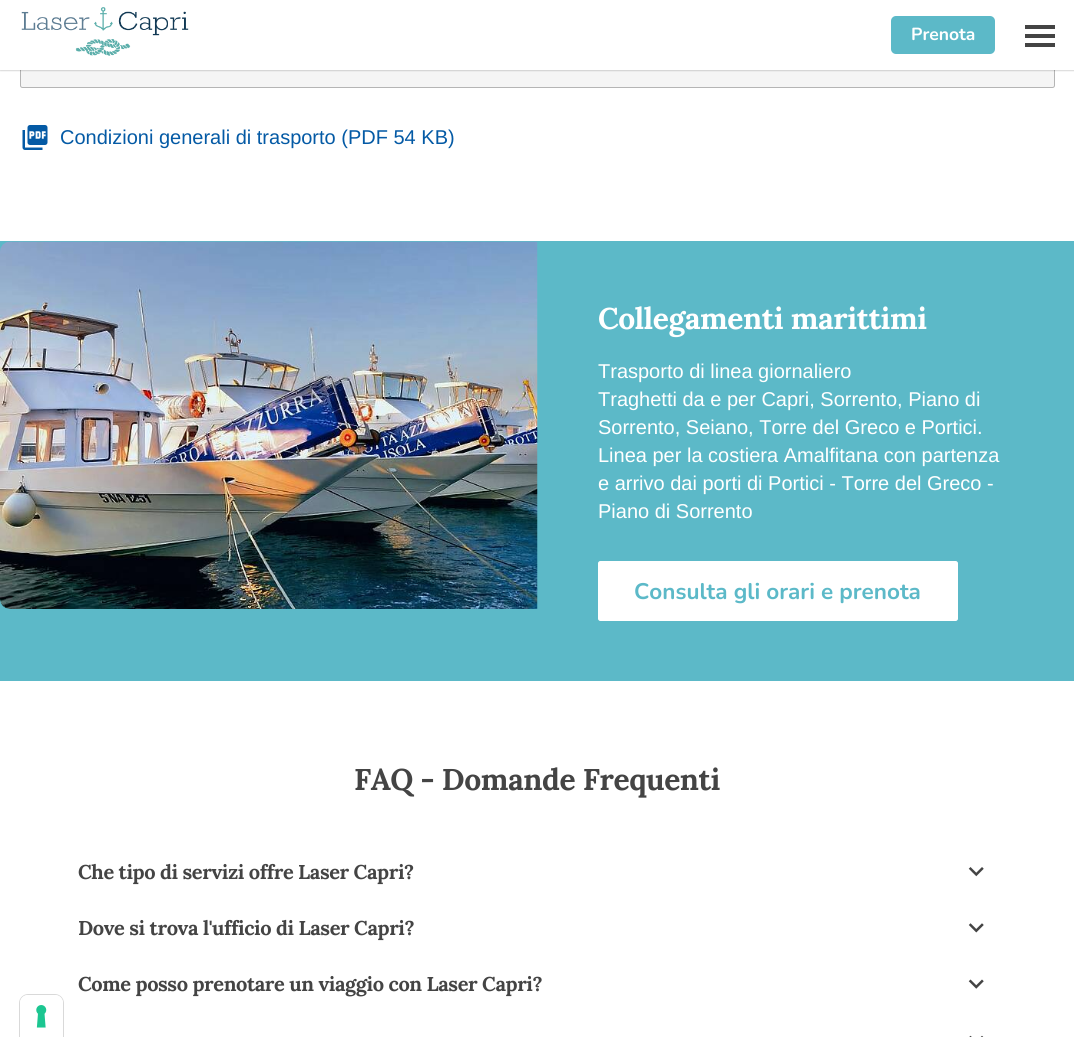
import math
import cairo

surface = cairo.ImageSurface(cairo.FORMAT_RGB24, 1074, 1037)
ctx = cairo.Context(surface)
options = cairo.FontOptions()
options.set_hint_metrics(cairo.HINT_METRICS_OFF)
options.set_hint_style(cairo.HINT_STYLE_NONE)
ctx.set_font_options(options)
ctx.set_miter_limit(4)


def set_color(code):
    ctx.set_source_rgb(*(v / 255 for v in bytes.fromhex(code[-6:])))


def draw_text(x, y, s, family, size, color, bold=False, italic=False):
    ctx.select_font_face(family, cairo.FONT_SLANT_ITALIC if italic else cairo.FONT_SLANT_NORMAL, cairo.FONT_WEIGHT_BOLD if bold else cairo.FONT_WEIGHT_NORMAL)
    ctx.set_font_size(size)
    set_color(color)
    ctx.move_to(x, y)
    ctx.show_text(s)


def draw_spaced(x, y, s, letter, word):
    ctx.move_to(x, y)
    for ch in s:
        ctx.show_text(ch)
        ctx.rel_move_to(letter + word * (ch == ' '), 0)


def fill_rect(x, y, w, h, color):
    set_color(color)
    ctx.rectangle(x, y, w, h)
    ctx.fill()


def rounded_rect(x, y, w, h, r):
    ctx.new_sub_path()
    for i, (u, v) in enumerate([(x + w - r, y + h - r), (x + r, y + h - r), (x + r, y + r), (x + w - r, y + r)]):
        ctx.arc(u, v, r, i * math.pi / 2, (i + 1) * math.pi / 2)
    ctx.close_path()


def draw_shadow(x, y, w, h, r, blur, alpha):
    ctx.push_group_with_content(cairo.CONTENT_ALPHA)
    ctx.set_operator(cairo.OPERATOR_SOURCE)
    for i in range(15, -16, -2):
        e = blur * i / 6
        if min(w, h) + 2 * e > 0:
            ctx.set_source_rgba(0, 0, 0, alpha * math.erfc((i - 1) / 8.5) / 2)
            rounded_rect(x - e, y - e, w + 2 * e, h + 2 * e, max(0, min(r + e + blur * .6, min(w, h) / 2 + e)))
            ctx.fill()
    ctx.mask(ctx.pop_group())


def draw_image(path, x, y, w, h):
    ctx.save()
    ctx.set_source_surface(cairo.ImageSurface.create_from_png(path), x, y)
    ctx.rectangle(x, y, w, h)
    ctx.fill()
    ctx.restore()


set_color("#ffffff")
ctx.paint()
set_color("#f5f5f5")
rounded_rect(20.5, -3.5, 1034, 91, 2)
ctx.fill_preserve()
set_color("#b5b5b5")
ctx.set_line_width(1)
ctx.stroke()
set_color("#000000")
draw_shadow(0, 1, 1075, 70, 0, 0.5, 0.15)
fill_rect(0, 0, 1074, 70, "#ffffff")
draw_image("assets/img1.png", 21, 7, 168, 49)
set_color("#5cb9c8")
rounded_rect(891, 16, 104, 38, 5)
ctx.fill()
draw_text(911, 40, "Prenota", "Nunito", 17.5, "#ffffff", bold=True)
fill_rect(1025, 34, 30, 4, "#444444")
fill_rect(1025, 25, 30, 4, "#444444")
fill_rect(1025, 43, 30, 4, "#444444")
draw_image("assets/img2.png", 22, 125, 26, 25)
draw_text(60, 144, "Condizioni generali di trasporto (PDF 54 KB)", "Liberation Sans", 20, "#045aa5")
fill_rect(0, 241, 1074, 440, "#5cb9c8")
draw_image("assets/img3.png", 0, 241, 538, 368)
ctx.select_font_face("Lora", cairo.FONT_SLANT_NORMAL, cairo.FONT_WEIGHT_BOLD)
ctx.set_font_size(30)
set_color("#ffffff")
draw_spaced(598, 329, "Collegamenti marittimi", -0.4, 0)
draw_text(598, 378, "Trasporto di linea giornaliero", "Liberation Sans", 20, "#ffffff")
draw_text(598, 406, "Traghetti da e per Capri, Sorrento, Piano di", "Liberation Sans", 20, "#ffffff")
draw_text(598, 434, "Sorrento, Seiano, Torre del Greco e Portici.", "Liberation Sans", 20, "#ffffff")
draw_text(598, 462, "Linea per la costiera Amalfitana con partenza", "Liberation Sans", 20, "#ffffff")
draw_text(598, 490, "e arrivo dai porti di Portici - Torre del Greco -", "Liberation Sans", 20, "#ffffff")
draw_text(598, 518, "Piano di Sorrento", "Liberation Sans", 20, "#ffffff")
rounded_rect(598.5, 561.5, 359, 59, 2)
ctx.fill_preserve()
ctx.stroke()
draw_text(634, 599, "Consulta gli orari e prenota", "Nunito", 22.5, "#5cb9c8", bold=True)
ctx.select_font_face("Lora", cairo.FONT_SLANT_NORMAL, cairo.FONT_WEIGHT_BOLD)
ctx.set_font_size(30)
set_color("#444444")
draw_spaced(354, 790, "FAQ - Domande Frequenti", -0.4, 0)
ctx.set_font_size(20)
draw_spaced(78, 879, "Che tipo di servizi offre Laser Capri?", -0.4, 0)
draw_image("assets/img4.png", 968, 867, 16, 10)
draw_spaced(78, 935, "Dove si trova l'ufficio di Laser Capri?", -0.4, 0)
draw_image("assets/img5.png", 968, 923, 16, 10)
draw_spaced(78, 991, "Come posso prenotare un viaggio con Laser Capri?", -0.4, 0)
draw_image("assets/img6.png", 968, 979, 16, 10)
draw_image("assets/img7.png", 969, 1035, 15, 2)
ctx.new_path()
ctx.move_to(28, 994.5)
ctx.line_to(55, 994.5)
ctx.curve_to(59.5, 994.5, 63.5, 998.5, 63.5, 1003)
ctx.line_to(63.5, 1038.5)
ctx.line_to(19.5, 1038.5)
ctx.line_to(19.5, 1003)
ctx.curve_to(19.5, 998.5, 23.5, 994.5, 28, 994.5)
ctx.close_path()
set_color("#d9d9d9")
ctx.stroke()
set_color("#ffffff")
ctx.new_path()
ctx.move_to(28, 995)
ctx.line_to(55, 995)
ctx.curve_to(59.5, 995, 63, 998.5, 63, 1003)
ctx.line_to(63, 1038)
ctx.line_to(20, 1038)
ctx.line_to(20, 1003)
ctx.curve_to(20, 998.5, 23.5, 995, 28, 995)
ctx.close_path()
ctx.fill()
draw_image("assets/img8.png", 36, 1005, 11, 23)
surface.write_to_png("output.png")
